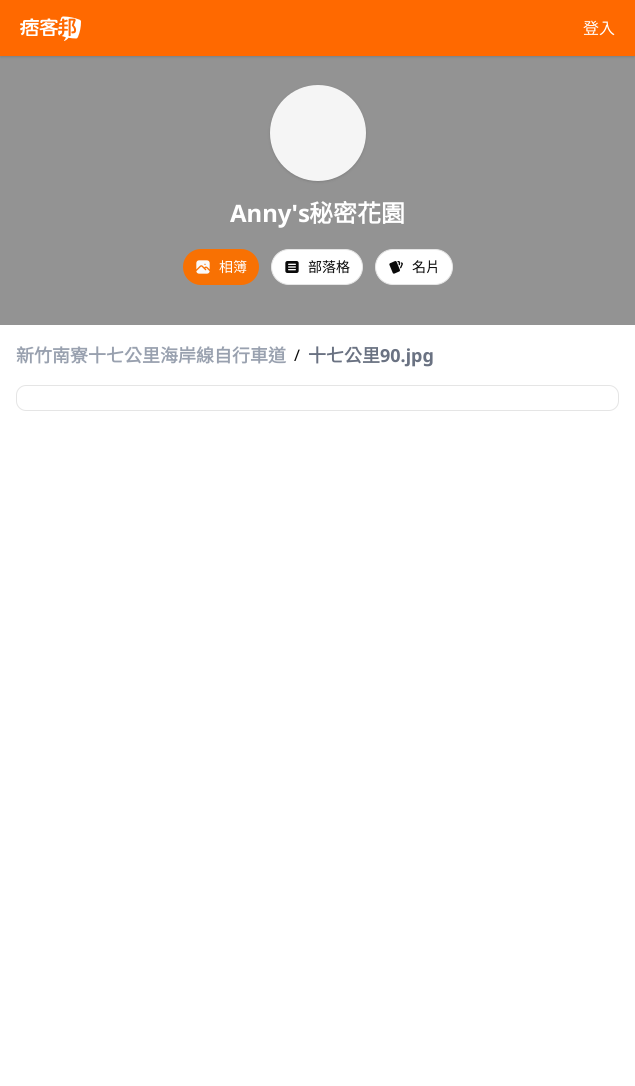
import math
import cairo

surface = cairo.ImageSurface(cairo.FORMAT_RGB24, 635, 1086)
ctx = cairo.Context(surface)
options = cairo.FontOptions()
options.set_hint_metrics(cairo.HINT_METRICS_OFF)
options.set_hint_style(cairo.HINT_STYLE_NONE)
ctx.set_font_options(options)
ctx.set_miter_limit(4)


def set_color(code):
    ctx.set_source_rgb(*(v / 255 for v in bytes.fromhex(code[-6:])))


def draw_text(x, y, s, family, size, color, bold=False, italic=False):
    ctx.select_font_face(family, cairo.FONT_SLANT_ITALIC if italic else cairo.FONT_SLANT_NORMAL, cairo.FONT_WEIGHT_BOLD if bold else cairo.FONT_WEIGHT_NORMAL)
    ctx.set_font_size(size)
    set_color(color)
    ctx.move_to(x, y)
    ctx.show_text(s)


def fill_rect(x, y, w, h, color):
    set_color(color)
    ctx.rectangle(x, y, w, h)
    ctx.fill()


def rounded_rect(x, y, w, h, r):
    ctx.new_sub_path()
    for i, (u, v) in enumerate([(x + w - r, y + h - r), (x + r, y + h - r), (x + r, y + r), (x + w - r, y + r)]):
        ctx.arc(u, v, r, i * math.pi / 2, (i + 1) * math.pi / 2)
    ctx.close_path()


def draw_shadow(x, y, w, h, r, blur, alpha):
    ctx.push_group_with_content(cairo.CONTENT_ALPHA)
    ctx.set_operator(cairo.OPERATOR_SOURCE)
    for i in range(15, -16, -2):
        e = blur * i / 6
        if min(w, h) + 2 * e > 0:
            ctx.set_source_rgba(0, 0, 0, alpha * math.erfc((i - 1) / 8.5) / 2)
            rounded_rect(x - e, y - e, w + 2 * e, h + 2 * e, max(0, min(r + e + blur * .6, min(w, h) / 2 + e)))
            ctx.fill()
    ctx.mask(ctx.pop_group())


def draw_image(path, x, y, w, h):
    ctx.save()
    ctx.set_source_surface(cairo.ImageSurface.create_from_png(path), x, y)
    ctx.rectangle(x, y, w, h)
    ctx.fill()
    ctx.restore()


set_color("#ffffff")
ctx.paint()
fill_rect(0, 56, 635, 269, "#939393")
set_color("#000000")
draw_shadow(1, 2, 633, 54, 0, 1, 0.1)
draw_shadow(0, 1, 635, 56, 0, 1.5, 0.1)
fill_rect(0, 0, 635, 56, "#ff6900")
draw_image("assets/img1.png", 20, 16, 61, 25)
draw_text(583, 34, "登入", "Noto Sans CJK TC", 16, "#ffffff")
set_color("#000000")
draw_shadow(271, 87, 94, 94, 47, 1, 0.1)
draw_shadow(270, 86, 96, 96, 48, 1.5, 0.1)
set_color("#f5f5f5")
ctx.arc(318, 133, 48, 0, 2 * math.pi)
ctx.fill()
draw_text(230, 222, "Anny's", "Noto Sans", 24, "#ffffff", bold=True)
draw_text(309, 222, "秘密花園", "Noto Sans CJK TC", 24, "#ffffff", bold=True)
set_color("#f87103")
rounded_rect(183, 249, 76, 36, 18)
ctx.fill()
draw_image("assets/img2.png", 196, 260, 14, 14)
draw_text(219, 272, "相簿", "Noto Sans CJK TC", 14, "#ffffff")
rounded_rect(271.5, 249.5, 91, 35, 17.5)
ctx.fill_preserve()
set_color("#e5e5e5")
ctx.set_line_width(1)
ctx.stroke()
draw_image("assets/img3.png", 285, 261, 14, 12)
draw_text(308, 272, "部落格", "Noto Sans CJK TC", 14, "#0a0a0a")
set_color("#ffffff")
rounded_rect(375.5, 249.5, 77, 35, 17.5)
ctx.fill_preserve()
set_color("#e5e5e5")
ctx.stroke()
draw_image("assets/img4.png", 389, 261, 14, 13)
draw_text(412, 272, "名片", "Noto Sans CJK TC", 14, "#0a0a0a")
draw_text(16, 362, "新竹南寮十七公里海岸線自行車道", "Noto Sans CJK TC", 18, "#99a1af", bold=True)
draw_text(294, 361, "/", "Noto Sans", 16, "#0a0a0a")
draw_text(308, 362, "十七公里", "Noto Sans CJK TC", 18, "#6a7282", bold=True)
draw_text(380, 362, "90.jpg", "Noto Sans", 18, "#6a7282", bold=True)
rounded_rect(16.5, 385.5, 602, 25, 9.5)
set_color("#e5e5e5")
ctx.stroke()
surface.write_to_png("output.png")
